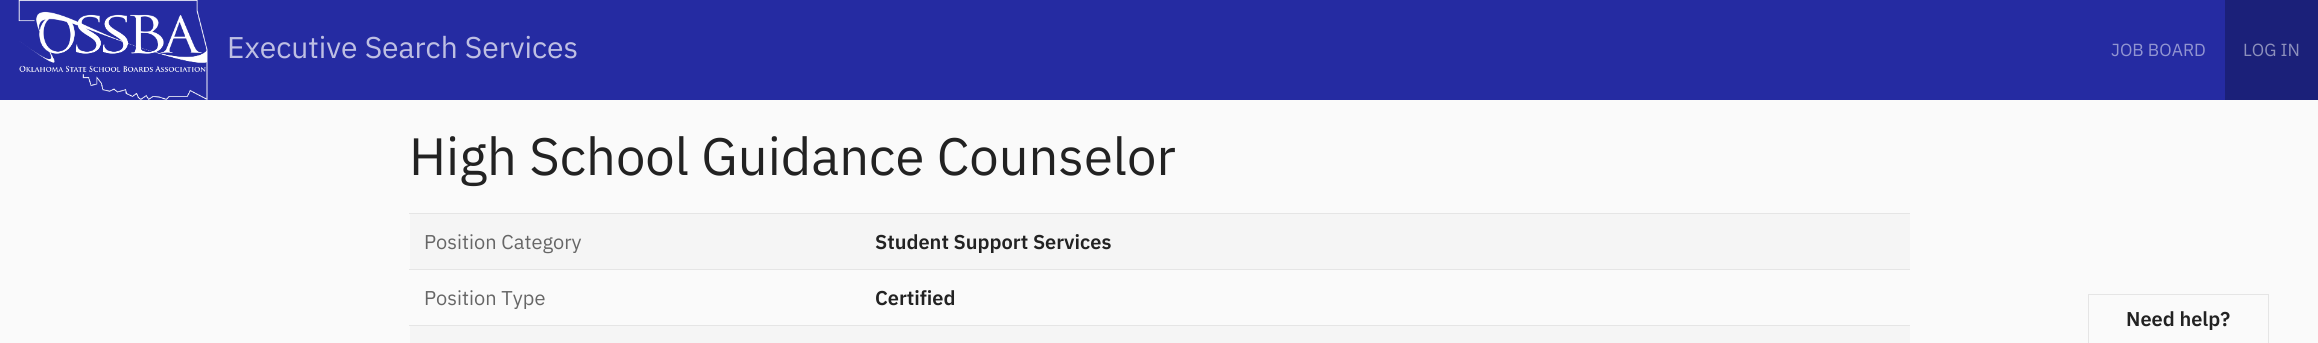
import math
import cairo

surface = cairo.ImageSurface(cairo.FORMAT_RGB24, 2318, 343)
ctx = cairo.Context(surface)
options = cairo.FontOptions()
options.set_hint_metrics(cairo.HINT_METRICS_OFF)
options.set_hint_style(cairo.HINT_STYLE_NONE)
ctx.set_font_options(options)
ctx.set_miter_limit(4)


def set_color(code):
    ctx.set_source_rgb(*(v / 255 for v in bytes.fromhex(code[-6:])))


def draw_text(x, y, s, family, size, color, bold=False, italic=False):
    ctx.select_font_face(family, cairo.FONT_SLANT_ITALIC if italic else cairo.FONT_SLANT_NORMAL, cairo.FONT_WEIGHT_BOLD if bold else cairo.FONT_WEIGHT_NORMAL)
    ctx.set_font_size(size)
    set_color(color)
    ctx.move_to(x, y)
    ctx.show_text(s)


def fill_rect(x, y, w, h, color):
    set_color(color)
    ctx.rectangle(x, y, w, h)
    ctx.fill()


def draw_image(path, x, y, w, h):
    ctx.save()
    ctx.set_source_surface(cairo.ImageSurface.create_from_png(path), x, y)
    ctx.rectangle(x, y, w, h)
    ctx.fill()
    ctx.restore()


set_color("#fafafa")
ctx.paint()
fill_rect(0, 0, 2225, 100, "#252ba2")
draw_image("assets/img1.png", 18, 0, 190, 100)
draw_text(227, 58, "Executive Search Services", "IBM Plex Sans", 30, "#bebfe3")
draw_text(2111, 56, "JOB BOARD", "IBM Plex Sans", 17.5, "#9295d1")
fill_rect(2225, 0, 93, 100, "#1b2079")
draw_text(2243, 56, "LOG IN", "IBM Plex Sans", 17.5, "#8d90bc")
draw_text(409, 175, "High School Guidance Counselor", "IBM Plex Sans", 52.5, "#222222")
fill_rect(410, 214, 1500, 55, "#f5f5f5")
fill_rect(409, 213, 1501, 1, "#e5e5e5")
fill_rect(409, 269, 1501, 1, "#e5e5e5")
draw_text(424, 249, "Position Category", "IBM Plex Sans", 20, "#666666")
draw_text(875, 249, "Student Support Services", "IBM Plex Sans SemiBold", 20, "#222222")
draw_text(424, 305, "Position Type", "IBM Plex Sans", 20, "#666666")
draw_text(875, 305, "Certified", "IBM Plex Sans SemiBold", 20, "#222222")
fill_rect(410, 326, 1500, 17, "#f5f5f5")
fill_rect(409, 325, 1501, 1, "#e5e5e5")
ctx.rectangle(2088.5, 294.5, 180, 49)
ctx.set_line_width(1)
ctx.stroke()
draw_text(2126, 326, "Need help?", "IBM Plex Sans SemiBold", 20, "#222222")
surface.write_to_png("output.png")
